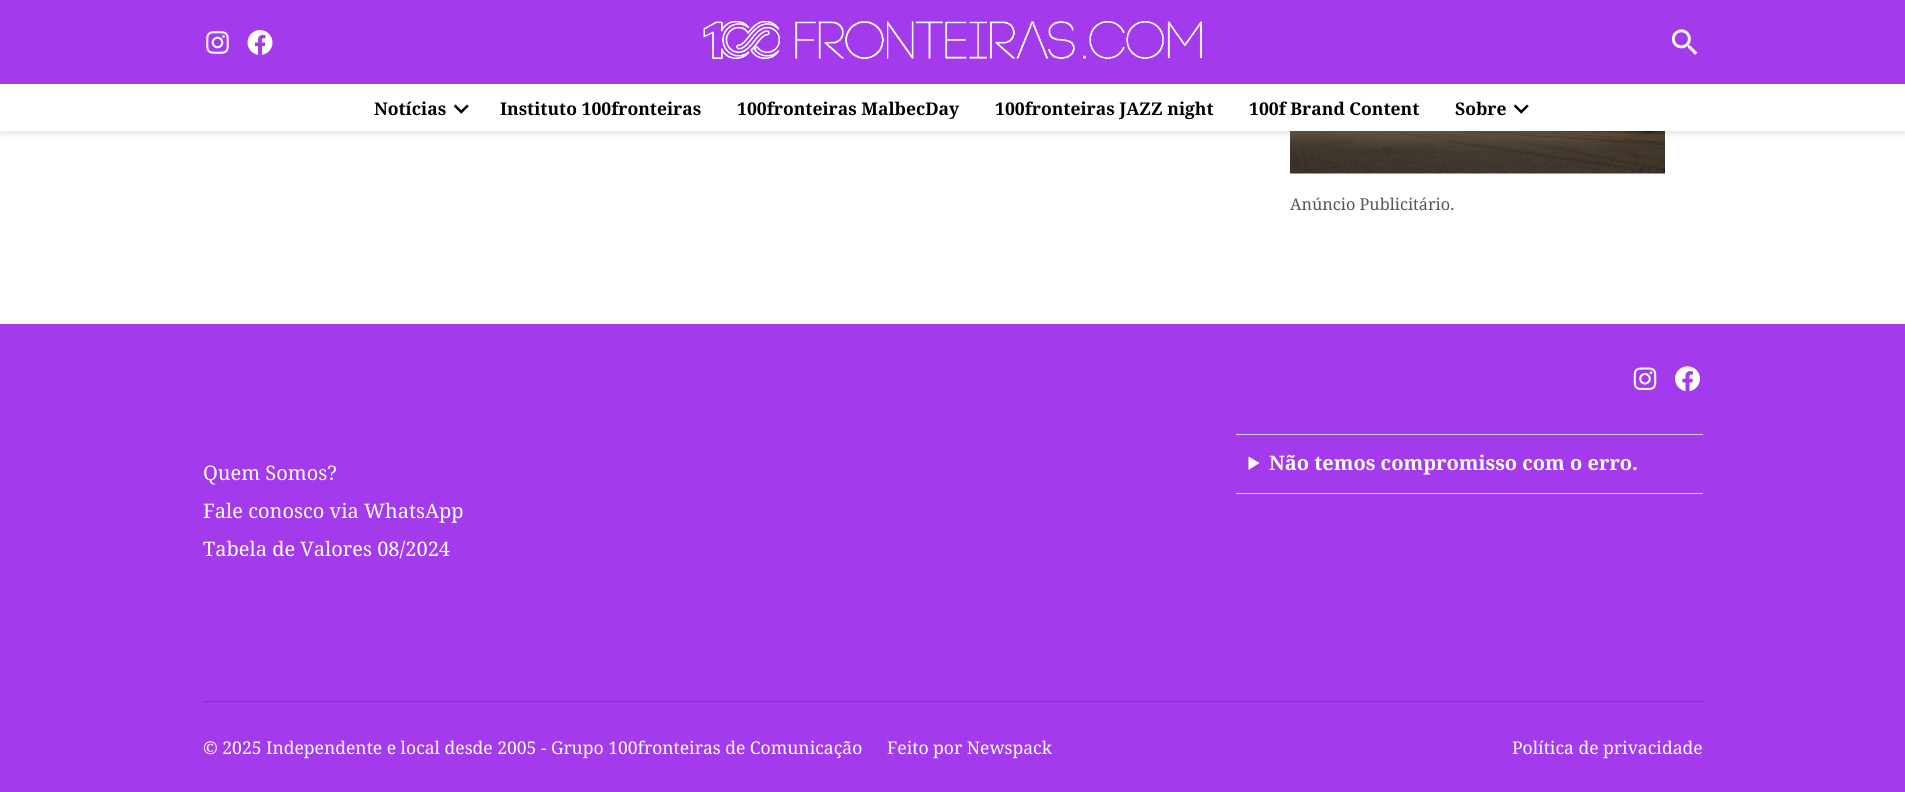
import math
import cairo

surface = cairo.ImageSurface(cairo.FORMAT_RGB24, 1905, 792)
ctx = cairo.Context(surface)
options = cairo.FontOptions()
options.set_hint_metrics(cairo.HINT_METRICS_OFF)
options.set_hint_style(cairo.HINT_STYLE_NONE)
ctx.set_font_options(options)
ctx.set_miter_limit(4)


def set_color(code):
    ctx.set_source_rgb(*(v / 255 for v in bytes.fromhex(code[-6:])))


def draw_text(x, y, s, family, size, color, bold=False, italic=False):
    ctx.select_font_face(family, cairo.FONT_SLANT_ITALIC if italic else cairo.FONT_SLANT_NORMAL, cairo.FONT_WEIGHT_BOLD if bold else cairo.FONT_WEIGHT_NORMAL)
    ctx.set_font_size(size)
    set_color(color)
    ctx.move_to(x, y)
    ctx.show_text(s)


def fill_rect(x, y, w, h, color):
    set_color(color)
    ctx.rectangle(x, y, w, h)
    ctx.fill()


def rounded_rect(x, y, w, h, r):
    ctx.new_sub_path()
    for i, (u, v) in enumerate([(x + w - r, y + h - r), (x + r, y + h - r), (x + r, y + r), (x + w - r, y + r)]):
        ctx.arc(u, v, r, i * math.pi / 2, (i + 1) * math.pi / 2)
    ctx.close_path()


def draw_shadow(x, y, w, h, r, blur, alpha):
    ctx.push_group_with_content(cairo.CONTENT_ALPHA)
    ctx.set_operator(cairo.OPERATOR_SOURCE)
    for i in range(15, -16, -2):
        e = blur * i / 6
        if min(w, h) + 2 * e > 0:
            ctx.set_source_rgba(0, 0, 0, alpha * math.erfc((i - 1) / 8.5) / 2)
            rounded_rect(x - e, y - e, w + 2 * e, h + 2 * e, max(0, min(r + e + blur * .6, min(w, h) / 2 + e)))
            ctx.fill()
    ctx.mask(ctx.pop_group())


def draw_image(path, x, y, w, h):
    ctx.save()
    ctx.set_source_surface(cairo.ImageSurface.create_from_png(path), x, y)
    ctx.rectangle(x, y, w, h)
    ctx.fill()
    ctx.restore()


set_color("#ffffff")
ctx.paint()
draw_image("assets/img6.png", 1290, 131, 375, 43)
set_color("#000000")
draw_shadow(0, 3, 1905, 131, 0, 3, 0.1)
fill_rect(0, 84, 1905, 47, "#ffffff")
fill_rect(0, 0, 1905, 84, "#a33bec")
draw_image("assets/img1.png", 206, 31, 23, 23)
draw_image("assets/img2.png", 247, 30, 26, 25)
draw_image("assets/img3.png", 703, 21, 499, 38)
draw_image("assets/img4.png", 1671, 29, 27, 26)
draw_text(374, 115, "Notícias", "Noto Serif", 17.5, "#000000", bold=True)
draw_image("assets/img5.png", 453, 104, 16, 10)
draw_text(500, 115, "Instituto 100fronteiras", "Noto Serif", 17.5, "#000000", bold=True)
draw_text(737, 115, "100fronteiras MalbecDay", "Noto Serif", 17.5, "#000000", bold=True)
draw_text(995, 115, "100fronteiras JAZZ night", "Noto Serif", 17.5, "#000000", bold=True)
draw_text(1249, 115, "100f Brand Content", "Noto Serif", 17.5, "#000000", bold=True)
draw_text(1455, 115, "Sobre", "Noto Serif", 17.5, "#000000", bold=True)
draw_image("assets/img5.png", 1513, 104, 16, 10)
draw_text(1290, 210, "Anúncio Publicitário.", "Noto Serif", 16.25, "#555555")
fill_rect(0, 324, 1905, 468, "#a33bec")
draw_image("assets/img7.png", 1633, 367, 24, 23)
draw_image("assets/img8.png", 1675, 366, 25, 26)
draw_text(203, 480, "Quem Somos?", "Noto Serif", 20, "#ffffff")
draw_text(203, 518, "Fale conosco via WhatsApp", "Noto Serif", 20, "#ffffff")
draw_text(203, 556, "Tabela de Valores 08/2024", "Noto Serif", 20, "#ffffff")
fill_rect(1236, 434, 467, 1, "#cccccc")
fill_rect(1236, 493, 467, 1, "#cccccc")
set_color("#ffffff")
ctx.new_path()
ctx.move_to(1248.5, 456.5)
ctx.line_to(1259.5, 463)
ctx.line_to(1248.5, 470)
ctx.close_path()
ctx.fill()
draw_text(1269, 470, "Não temos compromisso com o erro.", "Noto Serif", 20, "#ffffff", bold=True)
fill_rect(203, 701, 1500, 1, "#8f27d8")
draw_text(203, 754, "© 2025 Independente e local desde 2005 - Grupo 100fronteiras de Comunicação", "Noto Serif", 17.5, "#ffffff")
draw_text(887, 754, "Feito por Newspack", "Noto Serif", 17.5, "#ffffff")
draw_text(1512, 754, "Política de privacidade", "Noto Serif", 17.5, "#ffffff")
surface.write_to_png("output.png")
